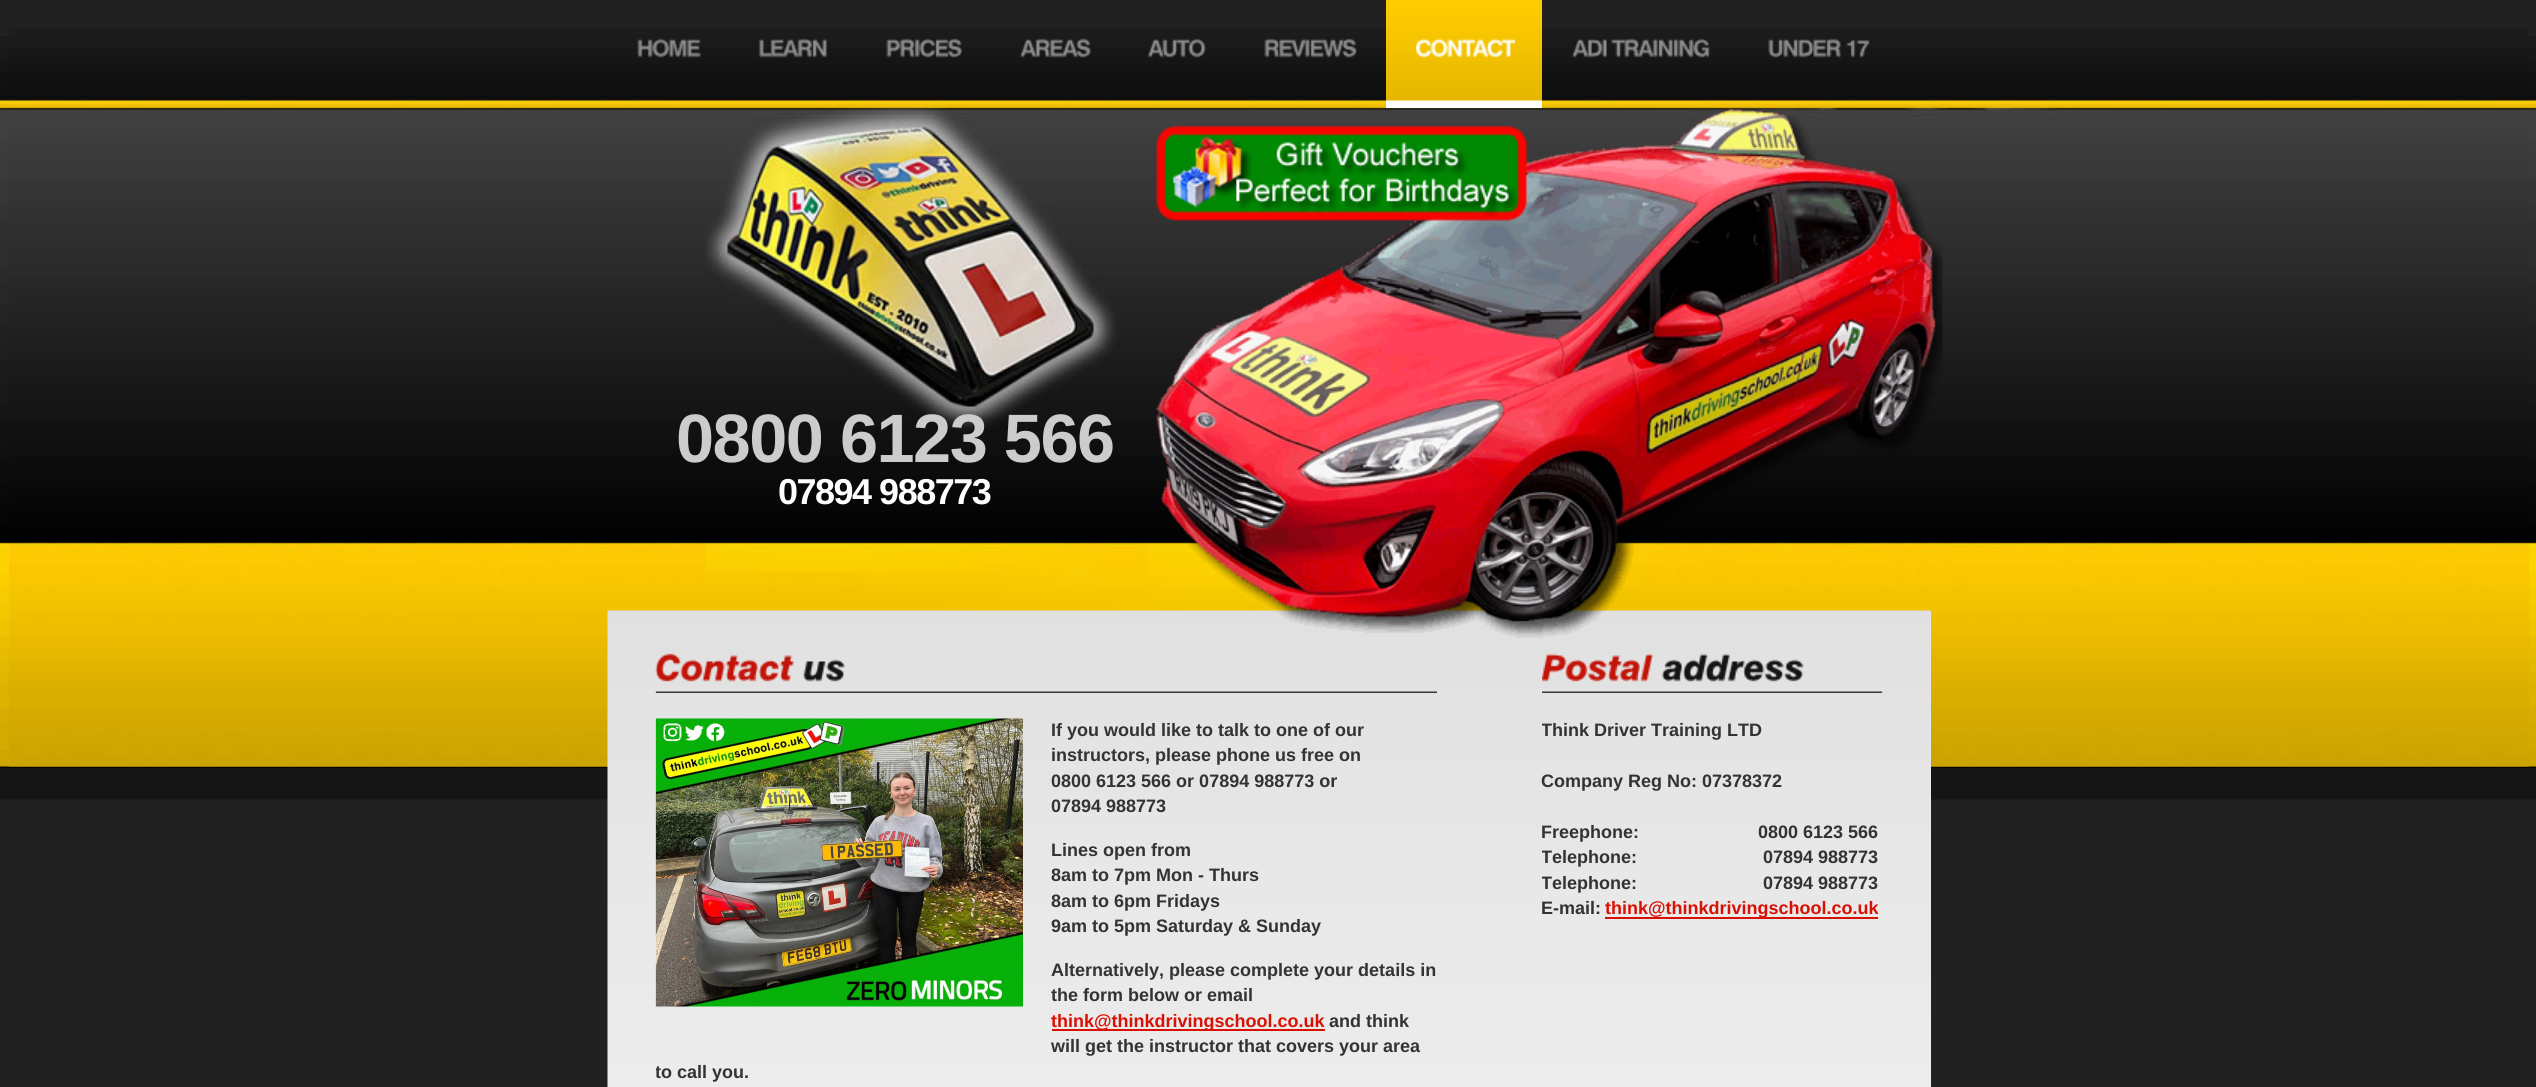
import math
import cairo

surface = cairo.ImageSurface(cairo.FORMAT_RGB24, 2536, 1087)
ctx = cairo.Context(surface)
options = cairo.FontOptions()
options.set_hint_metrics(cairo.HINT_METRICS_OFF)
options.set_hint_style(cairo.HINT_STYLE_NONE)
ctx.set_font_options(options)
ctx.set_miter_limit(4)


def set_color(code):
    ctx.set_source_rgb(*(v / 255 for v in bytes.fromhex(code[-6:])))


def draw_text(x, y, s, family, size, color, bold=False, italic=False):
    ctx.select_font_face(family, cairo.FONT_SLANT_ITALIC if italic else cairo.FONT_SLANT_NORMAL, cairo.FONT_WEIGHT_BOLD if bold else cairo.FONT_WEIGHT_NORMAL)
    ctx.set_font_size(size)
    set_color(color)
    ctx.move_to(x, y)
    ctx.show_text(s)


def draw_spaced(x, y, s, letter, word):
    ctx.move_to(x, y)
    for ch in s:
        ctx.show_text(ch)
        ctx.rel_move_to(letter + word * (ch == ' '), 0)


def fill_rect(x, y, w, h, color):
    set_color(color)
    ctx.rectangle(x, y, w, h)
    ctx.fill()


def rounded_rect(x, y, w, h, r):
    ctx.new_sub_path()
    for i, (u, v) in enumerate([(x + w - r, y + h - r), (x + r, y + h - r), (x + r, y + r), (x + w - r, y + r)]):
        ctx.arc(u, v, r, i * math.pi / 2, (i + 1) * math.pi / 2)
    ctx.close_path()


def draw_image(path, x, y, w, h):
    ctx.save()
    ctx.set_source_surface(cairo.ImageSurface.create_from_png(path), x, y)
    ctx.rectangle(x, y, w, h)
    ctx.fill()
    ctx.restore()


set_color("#212121")
ctx.paint()
draw_image("assets/img1.png", 0, 36, 2536, 764)
draw_image("assets/img2.png", 9, 28, 2520, 739)
draw_image("assets/img3.png", 637, 38, 64, 20)
draw_image("assets/img4.png", 758, 38, 69, 20)
draw_image("assets/img5.png", 886, 38, 76, 20)
draw_image("assets/img6.png", 1020, 38, 71, 20)
draw_image("assets/img7.png", 1147, 38, 60, 20)
draw_image("assets/img8.png", 1264, 38, 93, 20)
draw_image("assets/img9.png", 1386, 0, 156, 108)
draw_image("assets/img10.png", 1415, 38, 101, 20)
draw_image("assets/img11.png", 1572, 39, 35, 19)
draw_image("assets/img12.png", 1611, 38, 100, 20)
draw_image("assets/img13.png", 1768, 38, 73, 20)
draw_image("assets/img14.png", 1846, 40, 24, 18)
fill_rect(1930, 611, 1, 476, "#ededed")
draw_image("assets/img17.png", 607, 610, 1324, 477)
draw_image("assets/img15.png", 1156, 109, 787, 529)
draw_image("assets/img16.png", 1156, 125, 371, 96)
ctx.select_font_face("Liberation Sans", cairo.FONT_SLANT_NORMAL, cairo.FONT_WEIGHT_BOLD)
ctx.set_font_size(68.5)
set_color("#cccccc")
draw_spaced(676, 462, "0800 6123 566", -1.5, 0)
ctx.set_font_size(36)
set_color("#ffffff")
draw_spaced(778, 504, "07894 988773", -1.5, 0)
draw_image("assets/img18.png", 655, 691, 782, 2)
draw_image("assets/img19.png", 655, 653, 139, 29)
draw_image("assets/img20.png", 803, 659, 42, 23)
draw_image("assets/img21.png", 655, 718, 368, 289)
draw_text(1051, 736, "If you would like to talk to one of our", "Liberation Sans", 18, "#333333", bold=True)
draw_text(1051, 761, "instructors, please phone us free on", "Liberation Sans", 18, "#333333", bold=True)
draw_text(1051, 787, "0800 6123 566 or 07894 988773 or", "Liberation Sans", 18, "#333333", bold=True)
draw_text(1051, 812, "07894 988773", "Liberation Sans", 18, "#333333", bold=True)
draw_text(1051, 856, "Lines open from", "Liberation Sans", 18, "#333333", bold=True)
draw_text(1051, 881, "8am to 7pm Mon - Thurs", "Liberation Sans", 18, "#333333", bold=True)
draw_text(1051, 907, "8am to 6pm Fridays", "Liberation Sans", 18, "#333333", bold=True)
draw_text(1051, 932, "9am to 5pm Saturday & Sunday", "Liberation Sans", 18, "#333333", bold=True)
draw_text(1051, 976, "Alternatively, please complete your details in", "Liberation Sans", 18, "#333333", bold=True)
draw_text(1051, 1001, "the form below or email", "Liberation Sans", 18, "#333333", bold=True)
fill_rect(1052, 1029, 273, 2, "#d91004")
draw_text(1051, 1027, "think@thinkdrivingschool.co.uk", "Liberation Sans", 18, "#d91004", bold=True)
draw_text(1329, 1027, "and think", "Liberation Sans", 18, "#333333", bold=True)
draw_text(1051, 1052, "will get the instructor that covers your area", "Liberation Sans", 18, "#333333", bold=True)
ctx.save()
rounded_rect(656, 650, 1227, 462, 8)
ctx.clip()
draw_text(655, 1078, "to call you.", "Liberation Sans", 18, "#333333", bold=True)
ctx.restore()
draw_image("assets/img22.png", 1542, 691, 341, 2)
draw_image("assets/img23.png", 1542, 653, 112, 29)
draw_image("assets/img24.png", 1661, 653, 143, 29)
ctx.save()
ctx.rectangle(1542, 650, 341, 298)
ctx.clip()
draw_text(1541, 736, "Think Driver Training LTD", "Liberation Sans", 18, "#333333", bold=True)
ctx.restore()
draw_text(1541, 787, "Company Reg No: 07378372", "Liberation Sans", 18, "#333333", bold=True)
draw_text(1541, 838, "Freephone:", "Liberation Sans", 18, "#333333", bold=True)
draw_text(1758, 838, "0800 6123 566", "Liberation Sans", 18, "#333333", bold=True)
ctx.save()
ctx.rectangle(1542, 650, 341, 298)
ctx.clip()
draw_text(1541, 863, "Telephone:", "Liberation Sans", 18, "#333333", bold=True)
ctx.restore()
draw_text(1763, 863, "07894 988773", "Liberation Sans", 18, "#333333", bold=True)
ctx.save()
ctx.rectangle(1542, 650, 341, 298)
ctx.clip()
draw_text(1541, 889, "Telephone:", "Liberation Sans", 18, "#333333", bold=True)
ctx.restore()
draw_text(1763, 889, "07894 988773", "Liberation Sans", 18, "#333333", bold=True)
draw_text(1541, 914, "E-mail:", "Liberation Sans", 18, "#333333", bold=True)
fill_rect(1605, 917, 273, 2, "#d91004")
draw_text(1605, 914, "think@thinkdrivingschool.co.uk", "Liberation Sans", 18, "#d91004", bold=True)
surface.write_to_png("output.png")
